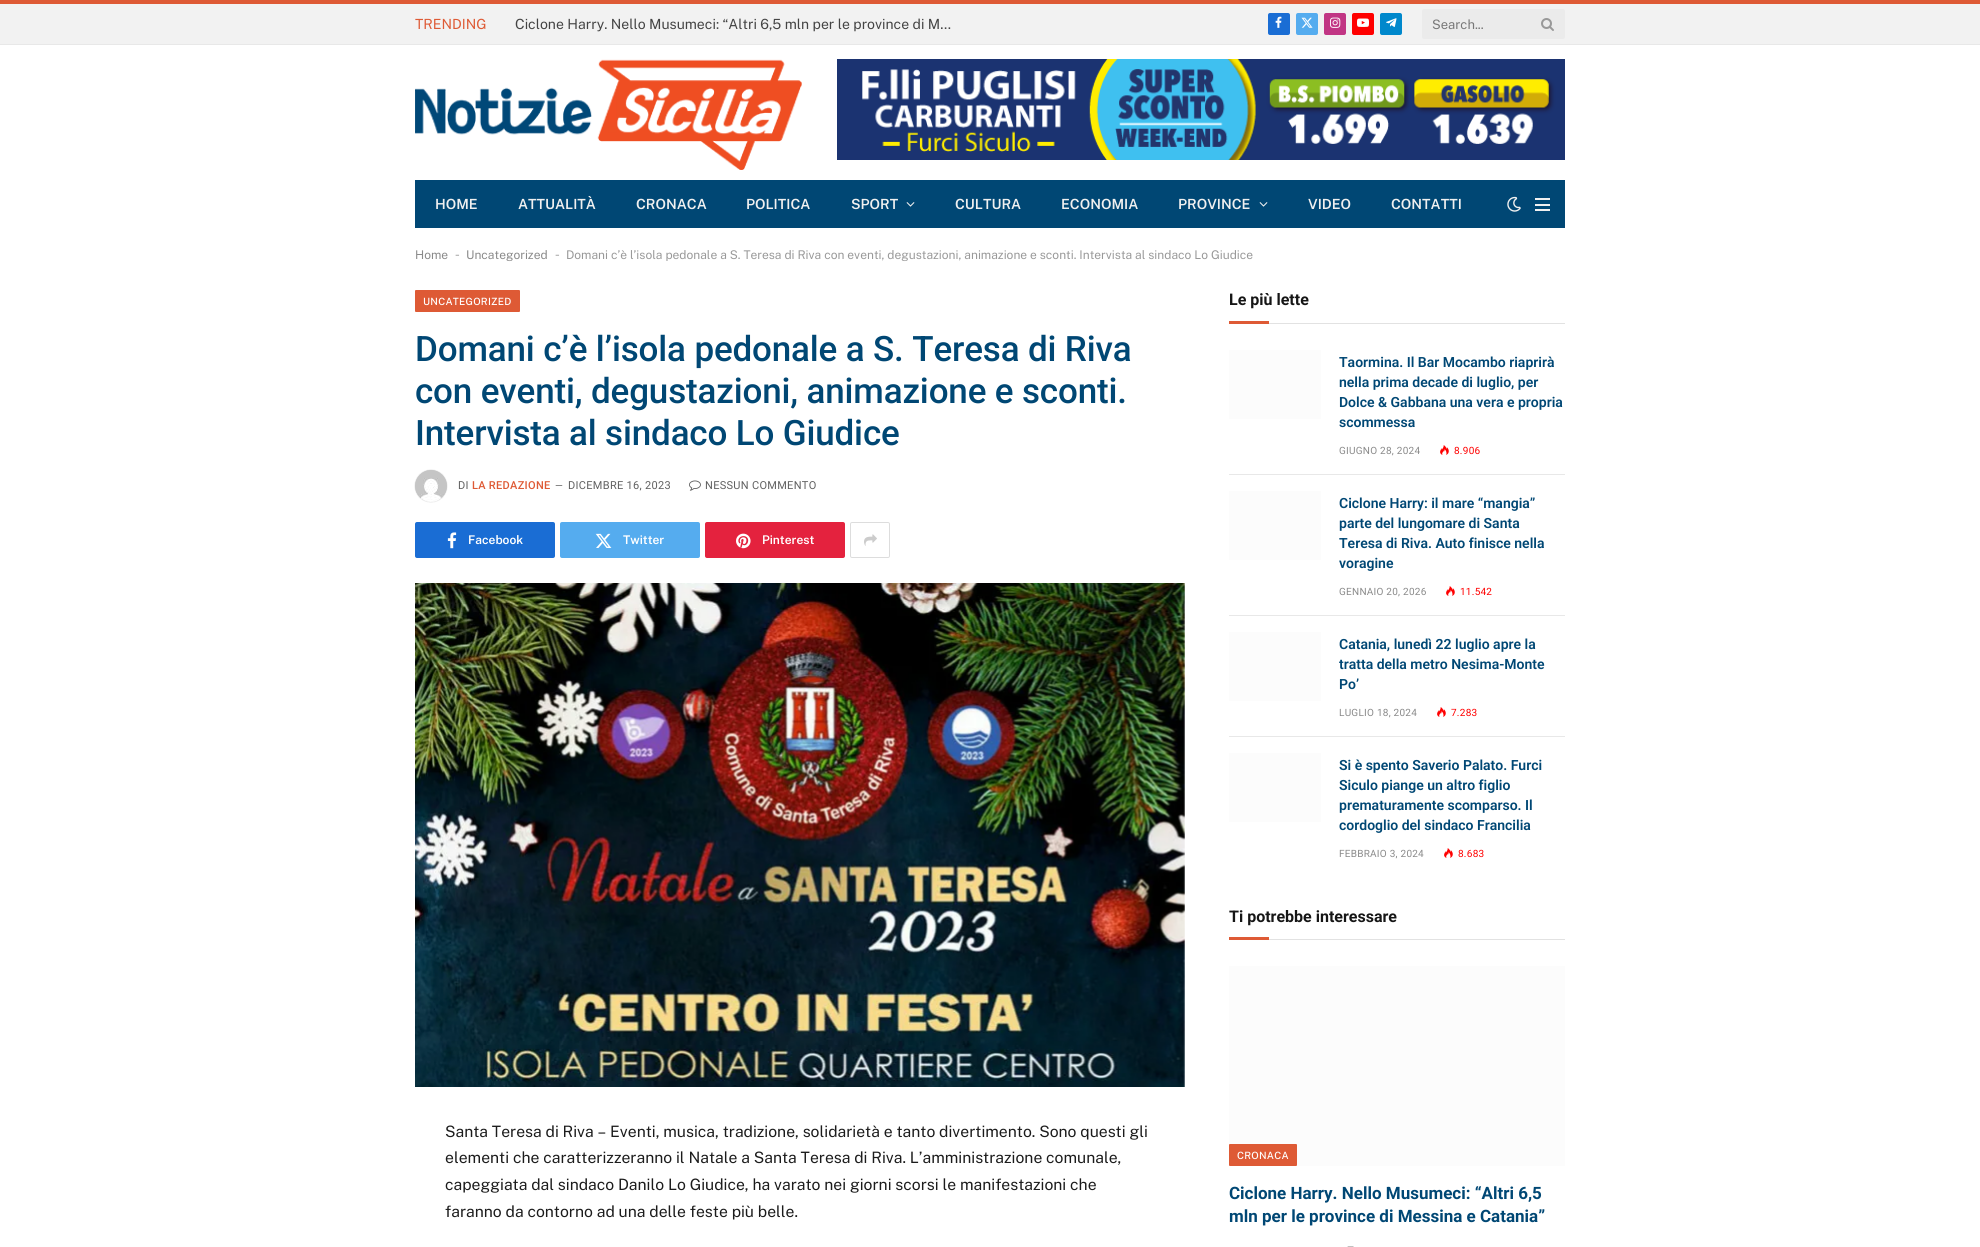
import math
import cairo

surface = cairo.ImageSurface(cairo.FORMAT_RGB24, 1980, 1247)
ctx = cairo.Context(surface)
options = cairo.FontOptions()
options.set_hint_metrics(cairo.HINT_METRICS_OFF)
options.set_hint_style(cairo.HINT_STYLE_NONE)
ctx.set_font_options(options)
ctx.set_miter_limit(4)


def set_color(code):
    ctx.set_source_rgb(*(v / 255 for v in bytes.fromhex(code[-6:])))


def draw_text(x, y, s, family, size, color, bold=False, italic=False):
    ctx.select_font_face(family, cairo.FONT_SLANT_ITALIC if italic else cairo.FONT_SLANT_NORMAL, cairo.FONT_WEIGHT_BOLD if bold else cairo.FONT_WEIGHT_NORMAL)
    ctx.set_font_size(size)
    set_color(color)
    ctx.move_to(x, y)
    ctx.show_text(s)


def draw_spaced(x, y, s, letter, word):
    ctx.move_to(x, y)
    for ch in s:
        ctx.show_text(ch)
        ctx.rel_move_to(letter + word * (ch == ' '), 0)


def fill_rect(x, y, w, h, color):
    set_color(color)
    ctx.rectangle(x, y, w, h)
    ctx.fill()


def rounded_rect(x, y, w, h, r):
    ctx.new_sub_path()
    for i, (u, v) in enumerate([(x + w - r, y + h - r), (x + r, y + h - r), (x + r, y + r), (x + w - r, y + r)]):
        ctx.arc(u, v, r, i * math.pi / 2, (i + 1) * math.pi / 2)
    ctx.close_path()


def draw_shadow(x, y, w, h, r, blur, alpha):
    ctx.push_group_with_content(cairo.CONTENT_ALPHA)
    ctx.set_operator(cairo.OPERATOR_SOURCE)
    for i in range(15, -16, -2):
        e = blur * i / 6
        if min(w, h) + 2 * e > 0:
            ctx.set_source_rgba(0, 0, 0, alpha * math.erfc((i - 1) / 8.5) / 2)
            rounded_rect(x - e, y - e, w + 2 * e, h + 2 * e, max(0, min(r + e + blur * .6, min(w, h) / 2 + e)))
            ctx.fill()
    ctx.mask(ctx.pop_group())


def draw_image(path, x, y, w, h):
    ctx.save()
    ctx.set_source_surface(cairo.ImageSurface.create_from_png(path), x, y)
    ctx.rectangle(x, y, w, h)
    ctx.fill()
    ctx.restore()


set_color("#ffffff")
ctx.paint()
fill_rect(0, 4, 1980, 40, "#f2f2f2")
fill_rect(0, 0, 1980, 4, "#de5a35")
fill_rect(0, 44, 1980, 1, "#e8e8e8")
draw_text(415, 29, "TRENDING", "Public Sans", 14, "#de5a35")
draw_text(515, 29, "Ciclone Harry. Nello Musumeci: “Altri 6,5 mln per le province di M…", "Public Sans", 14, "#444444")
set_color("#1a6dd4")
rounded_rect(1268, 13, 22, 22, 2)
ctx.fill()
draw_image("assets/img1.png", 1275, 16, 7, 12)
set_color("#55acef")
rounded_rect(1296, 13, 22, 22, 2)
ctx.fill()
draw_image("assets/img2.png", 1301, 17, 12, 11)
set_color("#c13584")
rounded_rect(1324, 13, 22, 22, 2)
ctx.fill()
draw_image("assets/img3.png", 1330, 17, 11, 11)
set_color("#ff0000")
rounded_rect(1352, 13, 22, 22, 2)
ctx.fill()
draw_image("assets/img4.png", 1357, 18, 12, 9)
set_color("#0088cc")
rounded_rect(1380, 13, 22, 22, 2)
ctx.fill()
draw_image("assets/img5.png", 1386, 18, 11, 9)
set_color("#ebebeb")
rounded_rect(1422, 9, 143, 30, 2)
ctx.fill()
draw_text(1432, 29, "Search...", "Public Sans", 13, "#777777")
draw_image("assets/img6.png", 1541, 18, 13, 13)
draw_image("assets/img7.png", 415, 59, 387, 111)
draw_image("assets/img8.png", 837, 59, 728, 101)
fill_rect(415, 180, 1150, 48, "#004774")
draw_text(435, 209, "HOME", "Public Sans SemiBold", 14, "#f0f0f0")
draw_text(518, 209, "ATTUALITÀ", "Public Sans SemiBold", 14, "#f0f0f0")
draw_text(636, 209, "CRONACA", "Public Sans SemiBold", 14, "#f0f0f0")
draw_text(746, 209, "POLITICA", "Public Sans SemiBold", 14, "#f0f0f0")
draw_text(851, 209, "SPORT", "Public Sans SemiBold", 14, "#f0f0f0")
draw_image("assets/img9.png", 906, 202, 9, 5)
draw_text(955, 209, "CULTURA", "Public Sans SemiBold", 14, "#f0f0f0")
draw_text(1061, 209, "ECONOMIA", "Public Sans SemiBold", 14, "#f0f0f0")
draw_text(1178, 209, "PROVINCE", "Public Sans SemiBold", 14, "#f0f0f0")
draw_image("assets/img9.png", 1259, 202, 9, 5)
draw_text(1308, 209, "VIDEO", "Public Sans SemiBold", 14, "#f0f0f0")
draw_text(1391, 209, "CONTATTI", "Public Sans SemiBold", 14, "#f0f0f0")
draw_image("assets/img10.png", 1507, 196, 14, 16)
fill_rect(1535, 209, 15, 2, "#f0f0f0")
fill_rect(1535, 198, 15, 2, "#f0f0f0")
fill_rect(1535, 204, 15, 2, "#f0f0f0")
draw_text(415, 259, "Home", "Public Sans", 12, "#8a8a8a")
draw_text(455, 259, "-", "Liberation Sans", 14, "#adadad")
draw_text(466, 259, "Uncategorized", "Public Sans", 12, "#8a8a8a")
draw_text(555, 259, "-", "Liberation Sans", 14, "#adadad")
draw_text(566, 259, "Domani c’è l’isola pedonale a S. Teresa di Riva con eventi, degustazioni, animazione e sconti. Intervista al sindaco Lo Giudice", "Public Sans", 12, "#999999")
set_color("#de5a35")
rounded_rect(415, 290, 105, 22, 1)
ctx.fill()
ctx.select_font_face("Public Sans Medium")
ctx.set_font_size(10)
set_color("#ffffff")
draw_spaced(423, 305, "UNCATEGORIZED", 0.25, 0)
ctx.select_font_face("Roboto Medium")
ctx.set_font_size(35)
set_color("#004774")
draw_spaced(415, 361, "Domani c’è l’isola pedonale a S. Teresa di Riva", -0.15, 0)
draw_spaced(415, 403, "con eventi, degustazioni, animazione e sconti.", -0.15, 0)
draw_spaced(415, 445, "Intervista al sindaco Lo Giudice", -0.15, 0)
set_color("#000000")
draw_shadow(415, 470, 32, 32, 16, 0.5, 0.2)
draw_image("assets/img11.png", 415, 470, 32, 32)
ctx.select_font_face("Roboto")
ctx.set_font_size(11)
set_color("#606060")
draw_spaced(458, 489, "DI", 0.3, 0)
ctx.select_font_face("Roboto Medium")
set_color("#de5a35")
draw_spaced(472, 489, "LA REDAZIONE", 0.3, 0)
ctx.select_font_face("Roboto")
ctx.set_font_size(10)
set_color("#606060")
draw_spaced(555, 489, "—", 0.25, 0)
ctx.set_font_size(11)
draw_spaced(568, 489, "DICEMBRE 16, 2023", 0.3, 0)
draw_image("assets/img12.png", 689, 480, 12, 11)
draw_spaced(705, 489, "NESSUN COMMENTO", 0.3, 0)
set_color("#1a6dd4")
rounded_rect(415, 522, 140, 36, 2)
ctx.fill()
draw_image("assets/img13.png", 447, 532, 10, 17)
draw_text(468, 544, "Facebook", "Public Sans SemiBold", 12, "#ffffff")
set_color("#55acef")
rounded_rect(560, 522, 140, 36, 2)
ctx.fill()
draw_image("assets/img14.png", 595, 533, 17, 15)
draw_text(623, 544, "Twitter", "Public Sans SemiBold", 12, "#ffffff")
set_color("#e4223e")
rounded_rect(705, 522, 140, 36, 2)
ctx.fill()
draw_image("assets/img15.png", 736, 533, 15, 16)
draw_text(762, 544, "Pinterest", "Public Sans SemiBold", 12, "#ffffff")
rounded_rect(850.5, 522.5, 39, 35, 1.5)
set_color("#dddddd")
ctx.set_line_width(1)
ctx.stroke()
draw_image("assets/img16.png", 864, 534, 13, 12)
draw_image("assets/img17.png", 415, 583, 770, 504)
draw_text(445, 1137, "Santa Teresa di Riva – Eventi, musica, tradizione, solidarietà e tanto divertimento. Sono questi gli", "Public Sans", 15.7, "#1c1c1c")
draw_text(445, 1163, "elementi che caratterizzeranno il Natale a Santa Teresa di Riva. L’amministrazione comunale,", "Public Sans", 15.7, "#1c1c1c")
draw_text(445, 1190, "capeggiata dal sindaco Danilo Lo Giudice, ha varato nei giorni scorsi le manifestazioni che", "Public Sans", 15.7, "#1c1c1c")
draw_text(445, 1217, "faranno da contorno ad una delle feste più belle.", "Public Sans", 15.7, "#1c1c1c")
fill_rect(1269, 323, 296, 1, "#e2e2e2")
draw_text(1229, 305, "Le più lette", "Roboto", 16, "#161616", bold=True)
fill_rect(1229, 321, 40, 3, "#de5a35")
fill_rect(1229, 350, 92, 69, "#fcfcfc")
draw_text(1339, 367, "Taormina. Il Bar Mocambo riaprirà", "Roboto SemiBold", 14, "#004774")
draw_text(1339, 387, "nella prima decade di luglio, per", "Roboto SemiBold", 14, "#004774")
draw_text(1339, 407, "Dolce & Gabbana una vera e propria", "Roboto SemiBold", 14, "#004774")
draw_text(1339, 427, "scommessa", "Roboto SemiBold", 14, "#004774")
ctx.select_font_face("Roboto")
ctx.set_font_size(10)
set_color("#8a8a8a")
draw_spaced(1339, 454, "GIUGNO 28, 2024", 0.25, 0)
draw_image("assets/img18.png", 1440, 445, 9, 10)
set_color("#ff0000")
draw_spaced(1454, 454, "8.906", 0.25, 0)
fill_rect(1229, 474, 336, 1, "#e8e8e8")
fill_rect(1229, 491, 92, 69, "#fcfcfc")
draw_text(1339, 508, "Ciclone Harry: il mare “mangia”", "Roboto SemiBold", 14, "#004774")
draw_text(1339, 528, "parte del lungomare di Santa", "Roboto SemiBold", 14, "#004774")
draw_text(1339, 548, "Teresa di Riva. Auto finisce nella", "Roboto SemiBold", 14, "#004774")
draw_text(1339, 568, "voragine", "Roboto SemiBold", 14, "#004774")
ctx.select_font_face("Roboto")
ctx.set_font_size(10)
set_color("#8a8a8a")
draw_spaced(1339, 595, "GENNAIO 20, 2026", 0.25, 0)
draw_image("assets/img18.png", 1446, 586, 9, 10)
set_color("#ff0000")
draw_spaced(1460, 595, "11.542", 0.25, 0)
fill_rect(1229, 615, 336, 1, "#e8e8e8")
fill_rect(1229, 632, 92, 69, "#fcfcfc")
draw_text(1339, 649, "Catania, lunedì 22 luglio apre la", "Roboto SemiBold", 14, "#004774")
draw_text(1339, 669, "tratta della metro Nesima-Monte", "Roboto SemiBold", 14, "#004774")
draw_text(1339, 689, "Po’", "Roboto SemiBold", 14, "#004774")
ctx.select_font_face("Roboto")
ctx.set_font_size(10)
set_color("#8a8a8a")
draw_spaced(1339, 716, "LUGLIO 18, 2024", 0.25, 0)
draw_image("assets/img18.png", 1437, 707, 9, 10)
set_color("#ff0000")
draw_spaced(1451, 716, "7.283", 0.25, 0)
fill_rect(1229, 736, 336, 1, "#e8e8e8")
fill_rect(1229, 753, 92, 69, "#fcfcfc")
draw_text(1339, 770, "Si è spento Saverio Palato. Furci", "Roboto SemiBold", 14, "#004774")
draw_text(1339, 790, "Siculo piange un altro figlio", "Roboto SemiBold", 14, "#004774")
draw_text(1339, 810, "prematuramente scomparso. Il", "Roboto SemiBold", 14, "#004774")
draw_text(1339, 830, "cordoglio del sindaco Francilia", "Roboto SemiBold", 14, "#004774")
ctx.select_font_face("Roboto")
ctx.set_font_size(10)
set_color("#8a8a8a")
draw_spaced(1339, 857, "FEBBRAIO 3, 2024", 0.25, 0)
draw_image("assets/img18.png", 1444, 848, 9, 10)
set_color("#ff0000")
draw_spaced(1458, 857, "8.683", 0.25, 0)
fill_rect(1269, 939, 296, 1, "#e2e2e2")
draw_text(1229, 922, "Ti potrebbe interessare", "Roboto", 16, "#161616", bold=True)
fill_rect(1229, 937, 40, 3, "#de5a35")
fill_rect(1229, 966, 336, 200, "#fcfcfc")
set_color("#de5a35")
rounded_rect(1229, 1144, 68, 22, 1)
ctx.fill()
ctx.select_font_face("Public Sans Medium")
ctx.set_font_size(10)
set_color("#ffffff")
draw_spaced(1237, 1159, "CRONACA", 0.25, 0)
draw_text(1229, 1199, "Ciclone Harry. Nello Musumeci: “Altri 6,5", "Roboto", 17, "#004774", bold=True)
draw_text(1229, 1222, "mln per le province di Messina e Catania”", "Roboto", 17, "#004774", bold=True)
draw_text(1347, 1250, "—", "Roboto", 9, "#8a8a8a")
surface.write_to_png("output.png")
